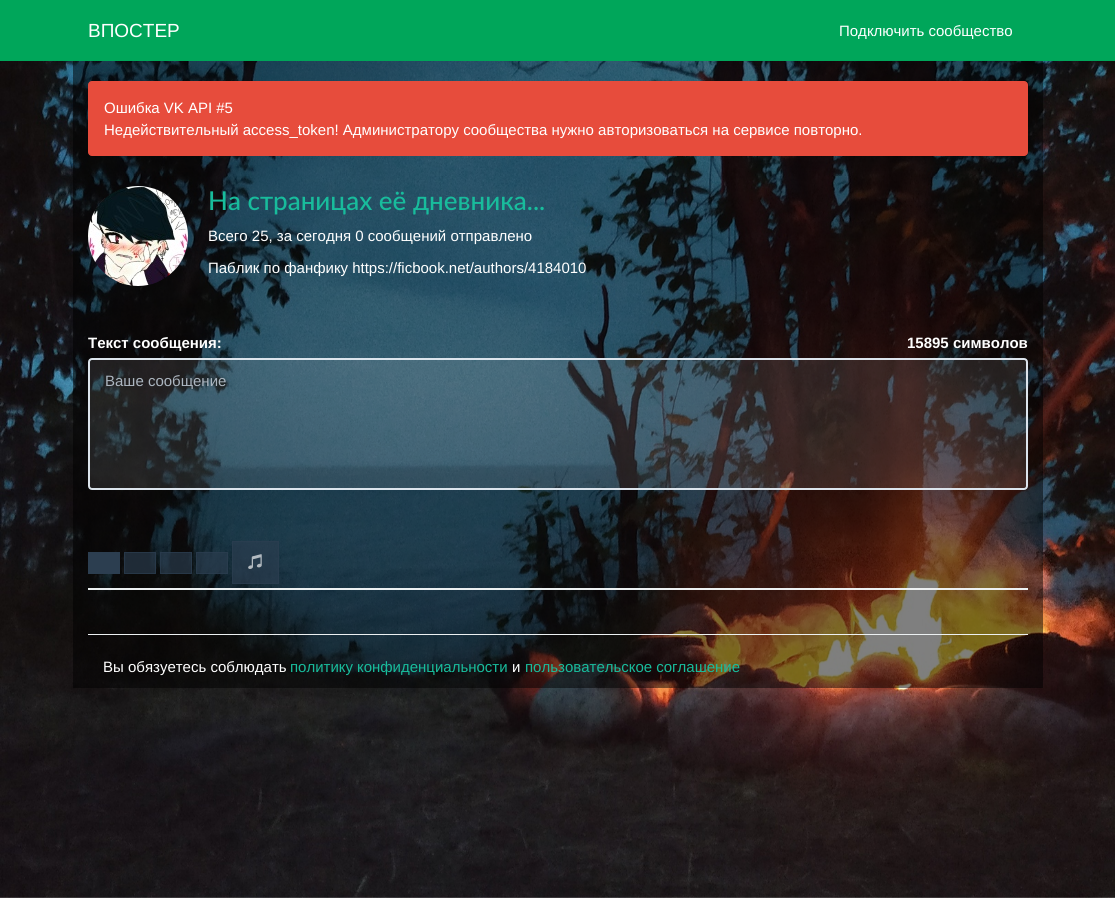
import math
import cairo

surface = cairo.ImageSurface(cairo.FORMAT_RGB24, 1115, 898)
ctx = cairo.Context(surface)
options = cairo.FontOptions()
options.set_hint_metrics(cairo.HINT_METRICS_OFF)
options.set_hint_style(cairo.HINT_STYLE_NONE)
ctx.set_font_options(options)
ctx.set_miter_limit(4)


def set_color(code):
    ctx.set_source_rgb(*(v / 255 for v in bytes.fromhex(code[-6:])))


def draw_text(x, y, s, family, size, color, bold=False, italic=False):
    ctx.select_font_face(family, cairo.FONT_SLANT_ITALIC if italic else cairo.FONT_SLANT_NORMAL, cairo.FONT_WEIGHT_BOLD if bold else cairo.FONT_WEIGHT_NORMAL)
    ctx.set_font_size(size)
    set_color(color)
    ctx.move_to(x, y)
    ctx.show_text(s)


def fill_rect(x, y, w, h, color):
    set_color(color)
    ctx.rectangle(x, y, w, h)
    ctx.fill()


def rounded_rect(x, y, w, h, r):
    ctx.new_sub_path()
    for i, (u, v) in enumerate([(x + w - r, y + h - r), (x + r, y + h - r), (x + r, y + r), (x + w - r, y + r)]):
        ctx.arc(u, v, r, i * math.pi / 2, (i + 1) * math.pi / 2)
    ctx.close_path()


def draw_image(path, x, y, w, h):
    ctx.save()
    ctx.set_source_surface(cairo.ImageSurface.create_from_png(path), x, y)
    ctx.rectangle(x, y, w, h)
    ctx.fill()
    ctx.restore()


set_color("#ffffff")
ctx.paint()
draw_image("assets/img1.png", 0, 61, 1115, 837)
fill_rect(0, 0, 1115, 61, "#00a65a")
draw_text(88, 37, "ВПОСТЕР", "Liberation Sans", 19, "#ffffff")
draw_text(839, 36, "Подключить сообщество", "Liberation Sans", 15, "#ffffff")
ctx.set_source_rgba(0, 0, 0, 0.5)
ctx.rectangle(73, 61, 970, 627)
ctx.fill()
set_color("#e74c3c")
rounded_rect(88.5, 81.5, 939, 74, 3.5)
ctx.fill_preserve()
ctx.set_line_width(1)
ctx.stroke()
draw_text(104, 113, "Ошибка VK API #5", "Liberation Sans", 15, "#ffffff")
draw_text(104, 135, "Недействительный access_token! Администратору сообщества нужно авторизоваться на сервисе повторно.", "Liberation Sans", 15, "#ffffff")
draw_image("assets/img2.png", 88, 186, 100, 100)
draw_text(208, 210, "На страницах её дневника...", "Lato Medium", 26, "#18bc9c")
draw_text(208, 241, "Всего 25, за сегодня 0 сообщений отправлено", "Liberation Sans", 15, "#ffffff")
draw_text(208, 273, "Паблик по фанфику https://ficbook.net/authors/4184010", "Liberation Sans", 15, "#ffffff")
draw_text(88, 348, "Текст сообщения:", "Liberation Sans", 15, "#ffffff", bold=True)
draw_text(907, 348, "15895 символов", "Liberation Sans", 15, "#ffffff", bold=True)
ctx.set_source_rgba(1, 1, 1, 0.1)
rounded_rect(89, 359, 938, 130, 3)
ctx.fill_preserve()
set_color("#dce4ec")
ctx.set_line_width(2)
ctx.stroke()
draw_text(105, 386, "Ваше сообщение", "Liberation Sans", 15, "#acb6c0")
fill_rect(88, 552, 32, 22, "#2c3e50")
ctx.set_source_rgba(0.173, 0.243, 0.314, 0.65)
ctx.rectangle(124, 552, 32, 22)
ctx.fill()
ctx.rectangle(124.5, 552.5, 31, 21)
ctx.set_line_width(1)
ctx.stroke()
ctx.rectangle(160, 552, 32, 22)
ctx.fill()
ctx.rectangle(160.5, 552.5, 31, 21)
ctx.stroke()
ctx.rectangle(196, 552, 32, 22)
ctx.fill()
ctx.rectangle(196.5, 552.5, 31, 21)
ctx.stroke()
ctx.rectangle(232, 541, 47, 43)
ctx.fill()
ctx.rectangle(232.5, 541.5, 46, 42)
ctx.stroke()
draw_image("assets/img3.png", 248, 554, 14, 15)
fill_rect(88, 588, 940, 2, "#ecf0f1")
fill_rect(88, 634, 940, 1, "#ecf0f1")
draw_text(103, 672, "Вы обязуетесь соблюдать", "Liberation Sans", 15, "#ffffff")
draw_text(290, 672, "политику конфиденциальности", "Liberation Sans", 15, "#18bc9c")
draw_text(512, 672, "и", "Liberation Sans", 15, "#ffffff")
draw_text(525, 672, "пользовательское соглашение", "Liberation Sans", 15, "#18bc9c")
surface.write_to_png("output.png")
